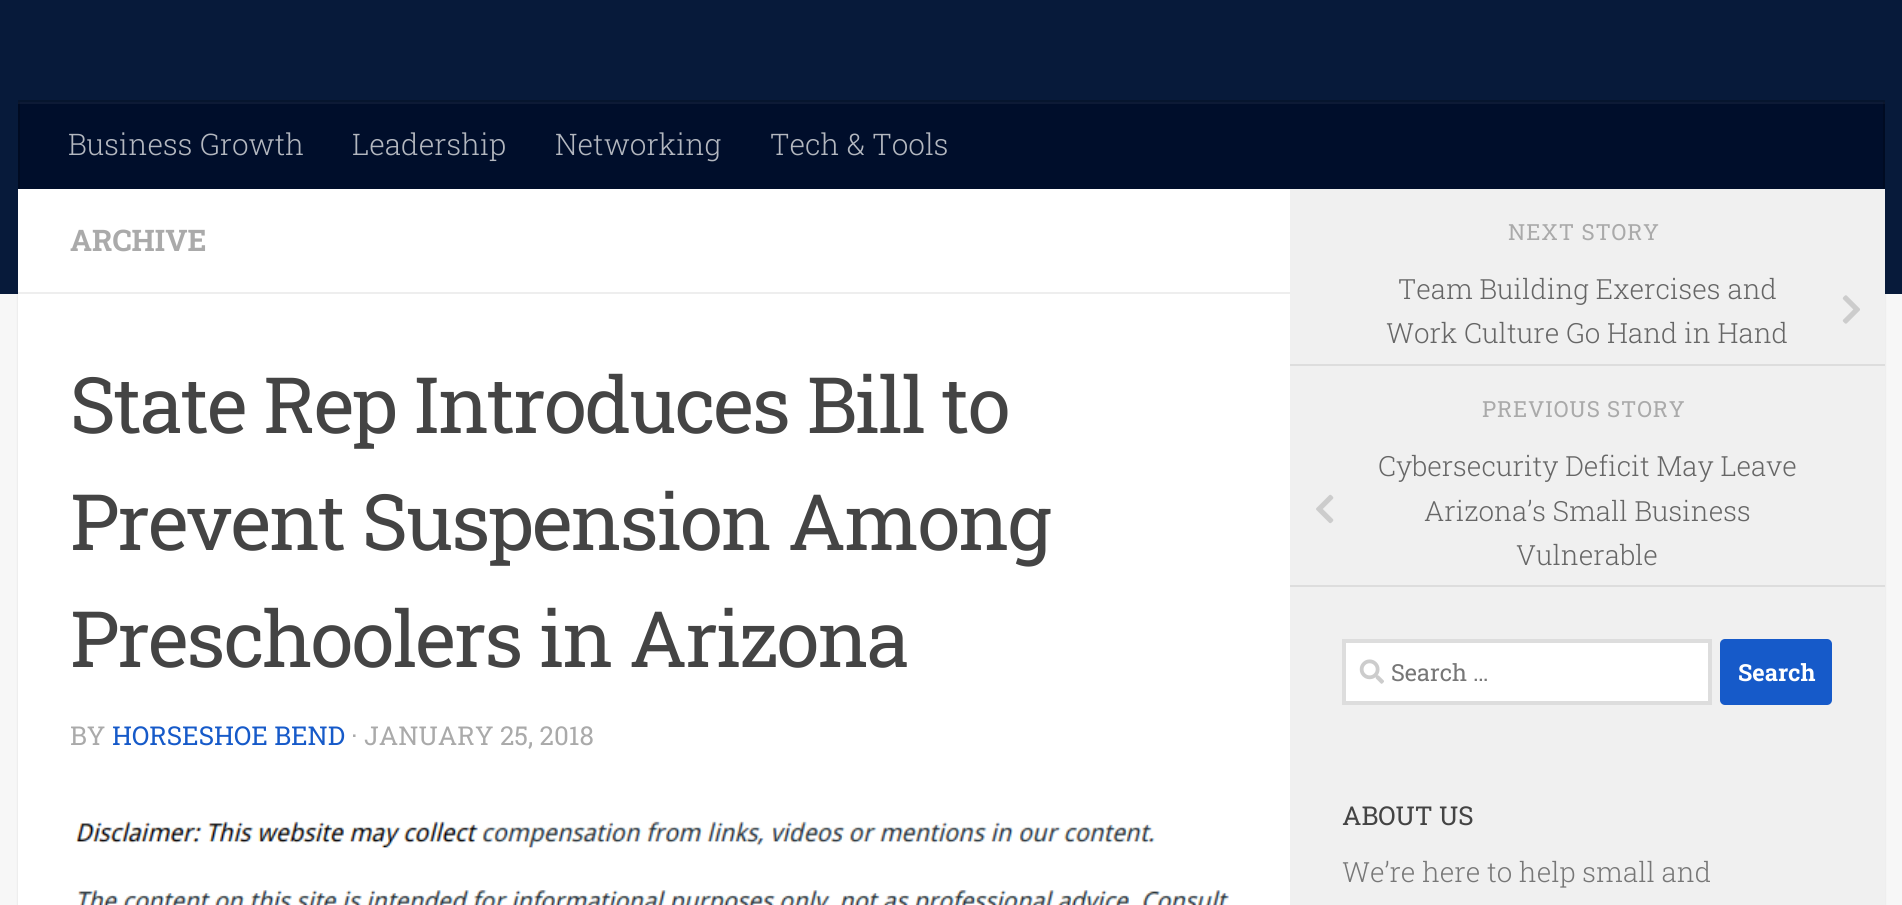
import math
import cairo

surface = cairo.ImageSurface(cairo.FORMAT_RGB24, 1902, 905)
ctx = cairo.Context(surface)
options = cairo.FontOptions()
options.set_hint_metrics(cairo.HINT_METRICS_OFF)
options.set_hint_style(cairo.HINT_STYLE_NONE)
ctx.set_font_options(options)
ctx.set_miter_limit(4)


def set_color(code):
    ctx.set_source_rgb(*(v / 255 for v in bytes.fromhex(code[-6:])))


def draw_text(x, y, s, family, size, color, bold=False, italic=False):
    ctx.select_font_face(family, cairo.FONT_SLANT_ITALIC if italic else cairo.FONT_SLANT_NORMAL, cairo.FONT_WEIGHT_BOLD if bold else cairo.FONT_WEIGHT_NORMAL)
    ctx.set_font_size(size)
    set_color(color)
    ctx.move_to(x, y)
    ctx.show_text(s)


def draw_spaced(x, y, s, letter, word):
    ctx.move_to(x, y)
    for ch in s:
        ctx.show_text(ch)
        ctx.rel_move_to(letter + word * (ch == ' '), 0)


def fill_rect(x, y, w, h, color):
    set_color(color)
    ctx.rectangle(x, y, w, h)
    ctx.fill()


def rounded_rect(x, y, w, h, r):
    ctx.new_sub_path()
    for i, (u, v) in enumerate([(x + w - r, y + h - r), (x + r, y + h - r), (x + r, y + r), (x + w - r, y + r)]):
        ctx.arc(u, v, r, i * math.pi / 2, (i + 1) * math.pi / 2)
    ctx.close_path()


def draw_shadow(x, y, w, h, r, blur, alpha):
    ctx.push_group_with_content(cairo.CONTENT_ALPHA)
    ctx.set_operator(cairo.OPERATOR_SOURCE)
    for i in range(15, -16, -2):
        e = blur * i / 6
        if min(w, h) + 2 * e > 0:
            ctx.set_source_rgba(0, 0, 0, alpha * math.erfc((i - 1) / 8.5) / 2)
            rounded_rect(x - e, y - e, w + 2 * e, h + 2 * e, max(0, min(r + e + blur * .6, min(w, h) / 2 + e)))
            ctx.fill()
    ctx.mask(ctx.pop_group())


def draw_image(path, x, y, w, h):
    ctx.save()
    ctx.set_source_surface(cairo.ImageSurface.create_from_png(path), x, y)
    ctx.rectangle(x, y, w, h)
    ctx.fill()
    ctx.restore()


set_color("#f7f7f7")
ctx.paint()
set_color("#000000")
draw_shadow(18, 191, 1867, 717, 0, 1, 0.1)
fill_rect(0, 0, 1902, 294, "#071a3a")
set_color("#06152e")
ctx.new_path()
ctx.move_to(18, 100)
ctx.line_to(18, 102)
ctx.line_to(1885, 102)
ctx.line_to(1885, 187)
ctx.line_to(1885, 100)
ctx.close_path()
ctx.fill()
fill_rect(20, 104, 1863, 85, "#000e2b")
fill_rect(18, 102, 1867, 2, "#0d1a36")
fill_rect(1883, 102, 2, 87, "#000b22")
fill_rect(1883, 102, 2, 2, "#0d172d")
fill_rect(18, 102, 2, 87, "#000b22")
fill_rect(18, 102, 2, 2, "#0d172d")
draw_text(68, 155, "Business Growth", "Roboto Slab Light", 29.75, "#b3b7bf")
draw_text(352, 155, "Leadership", "Roboto Slab Light", 29.75, "#b3b7bf")
draw_text(555, 155, "Networking", "Roboto Slab Light", 29.75, "#b3b7bf")
draw_text(770, 155, "Tech & Tools", "Roboto Slab Light", 29.75, "#b3b7bf")
fill_rect(18, 189, 1272, 716, "#ffffff")
fill_rect(1290, 189, 595, 716, "#f0f0f0")
fill_rect(18, 292, 1272, 2, "#eeeeee")
draw_text(70, 251, "ARCHIVE", "Roboto Slab", 29.75, "#aaaaaa", bold=True)
ctx.select_font_face("Roboto Slab")
ctx.set_font_size(77.75)
set_color("#444444")
draw_spaced(70, 433, "State Rep Introduces Bill to", -1.75, 0)
draw_spaced(70, 550, "Prevent Suspension Among", -1.75, 0)
draw_spaced(70, 667, "Preschoolers in Arizona", -1.75, 0)
draw_text(70, 745, "BY", "Roboto Slab", 26, "#aaaaaa")
draw_text(112, 745, "HORSESHOE BEND", "Roboto Slab", 26, "#165ac9")
draw_text(351, 745, "· JANUARY 25, 2018", "Roboto Slab", 26, "#aaaaaa")
draw_image("assets/img1.png", 75, 821, 1154, 84)
ctx.set_font_size(22.25)
draw_spaced(1508, 240, "NEXT STORY", 0.9, 0)
fill_rect(1290, 364, 595, 2, "#dddddd")
draw_text(1398, 299, "Team Building Exercises and", "Roboto Slab Light", 27.8, "#666666")
draw_image("assets/img2.png", 1842, 295, 18, 29)
draw_text(1386, 343, "Work Culture Go Hand in Hand", "Roboto Slab Light", 27.8, "#666666")
ctx.select_font_face("Roboto Slab")
ctx.set_font_size(22.25)
set_color("#aaaaaa")
draw_spaced(1482, 417, "PREVIOUS STORY", 0.9, 0)
fill_rect(1290, 585, 595, 2, "#dddddd")
draw_text(1378, 476, "Cybersecurity Deficit May Leave", "Roboto Slab Light", 27.8, "#666666")
draw_image("assets/img3.png", 1316, 494, 18, 30)
draw_text(1424, 521, "Arizona’s Small Business", "Roboto Slab Light", 27.8, "#666666")
draw_text(1516, 565, "Vulnerable", "Roboto Slab Light", 27.8, "#666666")
set_color("#ffffff")
ctx.rectangle(1344, 641, 366, 62)
ctx.fill_preserve()
set_color("#dddddd")
ctx.set_line_width(4)
ctx.stroke()
draw_image("assets/img4.png", 1359, 659, 25, 25)
draw_text(1391, 681, "Search …", "Roboto Slab", 23.5, "#777777")
set_color("#165ac9")
rounded_rect(1720, 639, 112, 66, 5)
ctx.fill()
draw_text(1738, 681, "Search", "Roboto Slab", 23.5, "#ffffff", bold=True)
draw_text(1342, 825, "ABOUT US", "Roboto Slab", 26, "#444444")
draw_text(1342, 882, "We’re here to help small and", "Roboto Slab Light", 27.8, "#777777")
surface.write_to_png("output.png")
